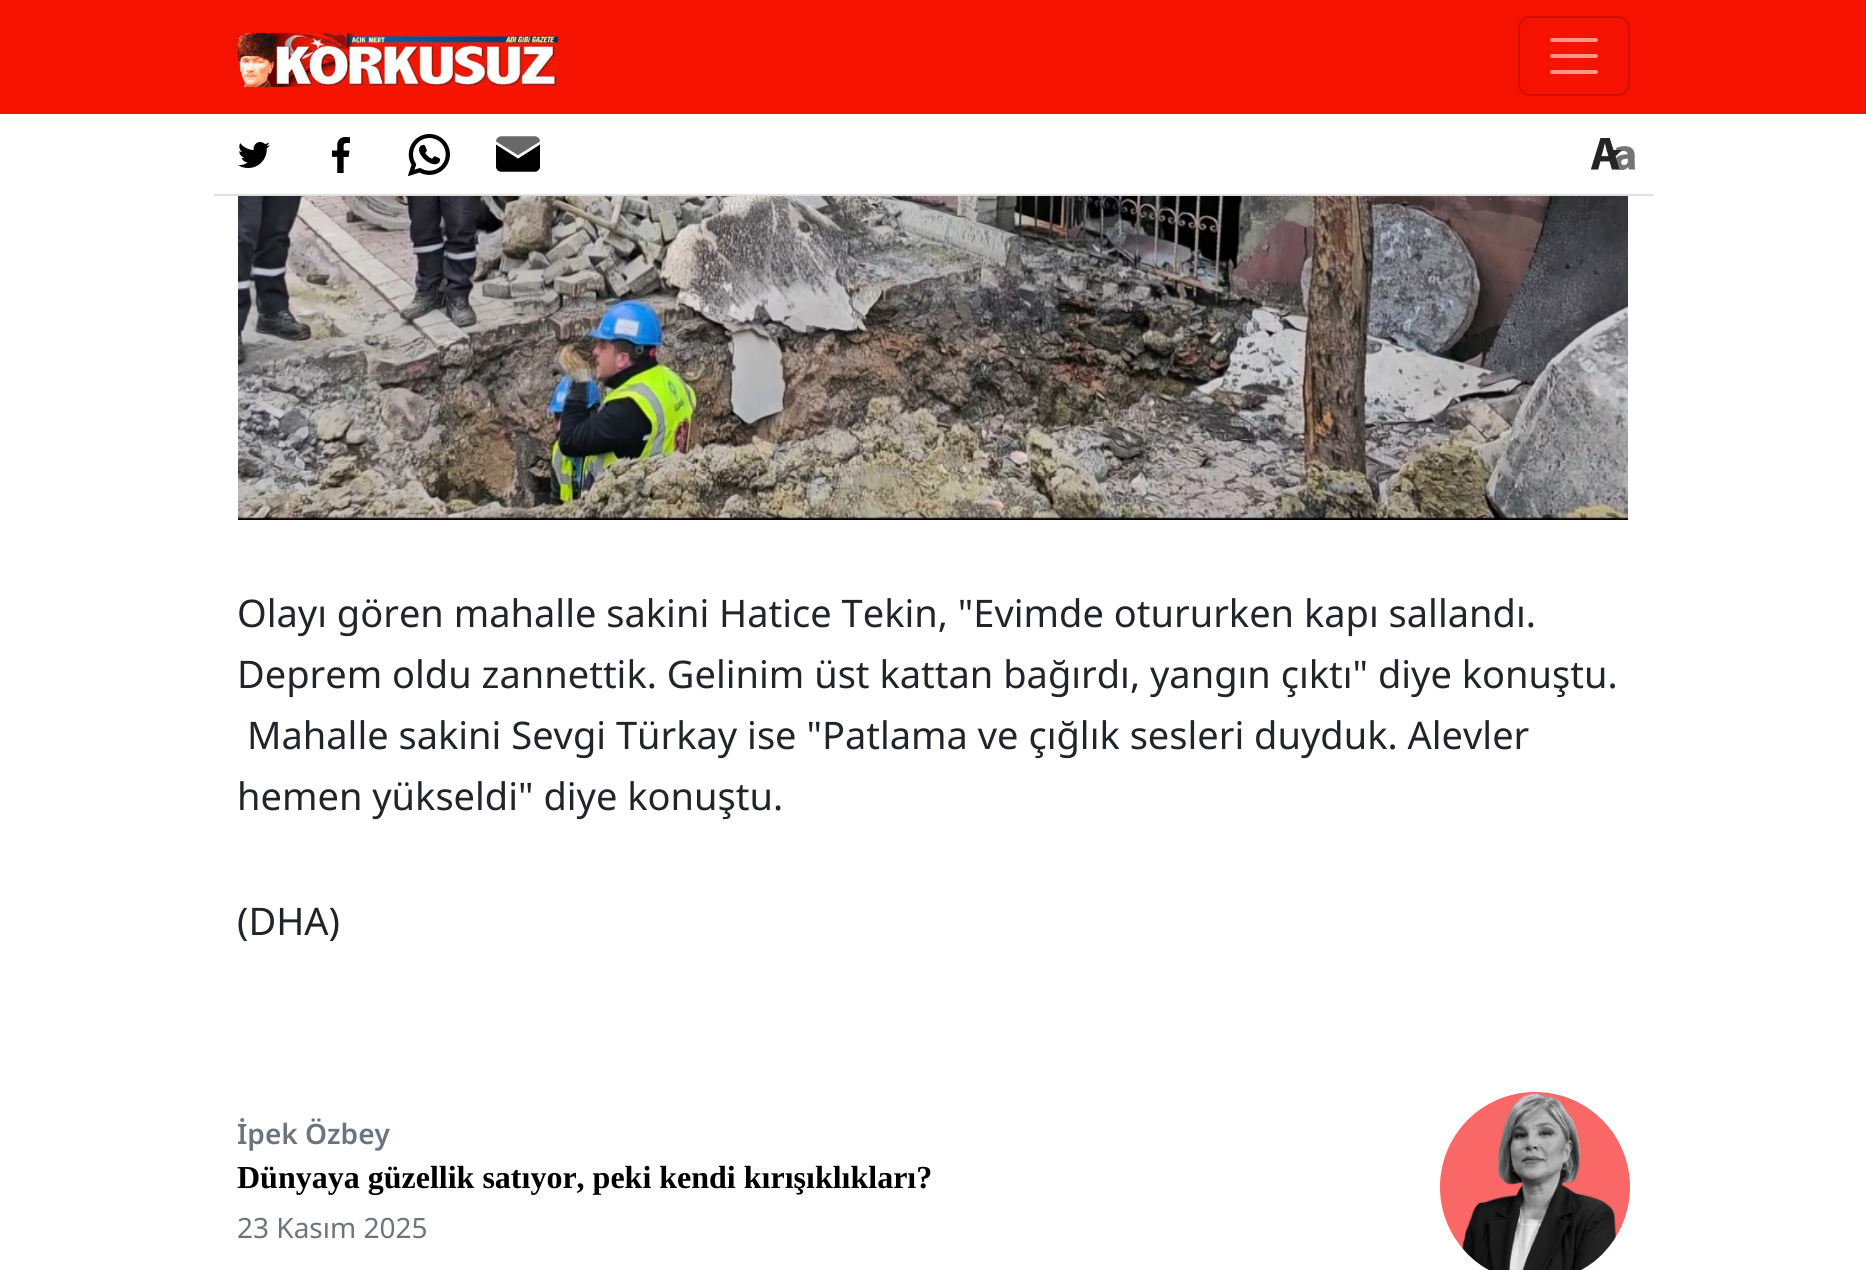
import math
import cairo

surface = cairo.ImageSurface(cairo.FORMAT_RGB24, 1866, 1270)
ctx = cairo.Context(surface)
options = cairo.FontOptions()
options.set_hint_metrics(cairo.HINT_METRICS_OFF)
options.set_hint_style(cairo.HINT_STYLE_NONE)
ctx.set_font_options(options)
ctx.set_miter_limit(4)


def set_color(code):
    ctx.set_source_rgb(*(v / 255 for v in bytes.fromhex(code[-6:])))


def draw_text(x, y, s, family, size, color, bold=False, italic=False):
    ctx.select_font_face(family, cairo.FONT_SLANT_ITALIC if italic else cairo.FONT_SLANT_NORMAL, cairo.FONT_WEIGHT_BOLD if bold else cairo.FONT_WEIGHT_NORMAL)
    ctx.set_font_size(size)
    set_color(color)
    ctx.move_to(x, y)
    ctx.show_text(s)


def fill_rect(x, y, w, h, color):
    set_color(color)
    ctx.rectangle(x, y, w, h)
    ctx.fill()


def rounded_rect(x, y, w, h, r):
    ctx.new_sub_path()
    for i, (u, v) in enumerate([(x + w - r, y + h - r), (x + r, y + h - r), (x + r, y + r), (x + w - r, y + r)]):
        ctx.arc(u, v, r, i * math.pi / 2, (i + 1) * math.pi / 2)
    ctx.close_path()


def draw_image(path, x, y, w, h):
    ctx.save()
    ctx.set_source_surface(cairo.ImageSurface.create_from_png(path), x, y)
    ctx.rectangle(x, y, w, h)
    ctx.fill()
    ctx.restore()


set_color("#ffffff")
ctx.paint()
fill_rect(0, 0, 1866, 114, "#f51200")
draw_image("assets/img1.png", 237, 32, 321, 56)
rounded_rect(1519, 17, 110, 78, 11)
set_color("#d00f00")
ctx.stroke()
ctx.new_path()
ctx.move_to(1552, 40)
ctx.line_to(1596, 40)
ctx.move_to(1552, 56)
ctx.line_to(1596, 56)
ctx.move_to(1552, 72)
ctx.line_to(1596, 72)
set_color("#fb948c")
ctx.set_line_width(4)
ctx.set_line_cap(cairo.LINE_CAP_ROUND)
ctx.stroke()
fill_rect(214, 194, 1440, 2, "#e0e0e0")
draw_image("assets/img2.png", 238, 142, 32, 26)
draw_image("assets/img3.png", 332, 137, 18, 36)
draw_image("assets/img4.png", 408, 134, 42, 42)
draw_image("assets/img5.png", 496, 136, 44, 36)
draw_image("assets/img6.png", 1590, 138, 46, 32)
set_color("#212529")
ctx.new_path()
ctx.move_to(1606, 150)
ctx.line_to(1622, 150)
ctx.line_to(1614, 158)
ctx.close_path()
ctx.fill()
draw_image("assets/img7.png", 238, 196, 1390, 324)
draw_text(237, 627, "Olayı gören mahalle sakini Hatice Tekin, \"Evimde otururken kapı sallandı.", "Noto Sans", 38, "#212529")
draw_text(237, 688, "Deprem oldu zannettik. Gelinim üst kattan bağırdı, yangın çıktı\" diye konuştu.", "Noto Sans", 38, "#212529")
draw_text(247, 749, "Mahalle sakini Sevgi Türkay ise \"Patlama ve çığlık sesleri duyduk. Alevler", "Noto Sans", 38, "#212529")
draw_text(237, 810, "hemen yükseldi\" diye konuştu.", "Noto Sans", 38, "#212529")
draw_text(237, 935, "(DHA)", "Noto Sans", 38, "#212529")
draw_text(237, 1144, "İpek Özbey", "Noto Sans SemiBold", 28, "#6c757d")
draw_text(237, 1188, "Dünyaya güzellik satıyor, peki kendi kırışıklıkları?", "Liberation Serif", 32, "#000000", bold=True)
draw_text(237, 1238, "23 Kasım 2025", "Noto Sans", 28, "#6c757d")
set_color("#fa6767")
ctx.new_path()
ctx.arc(1535, 1187, 95, 0, 2 * math.pi)
ctx.fill()
draw_image("assets/img8.png", 1462, 1092, 154, 178)
surface.write_to_png("output.png")
